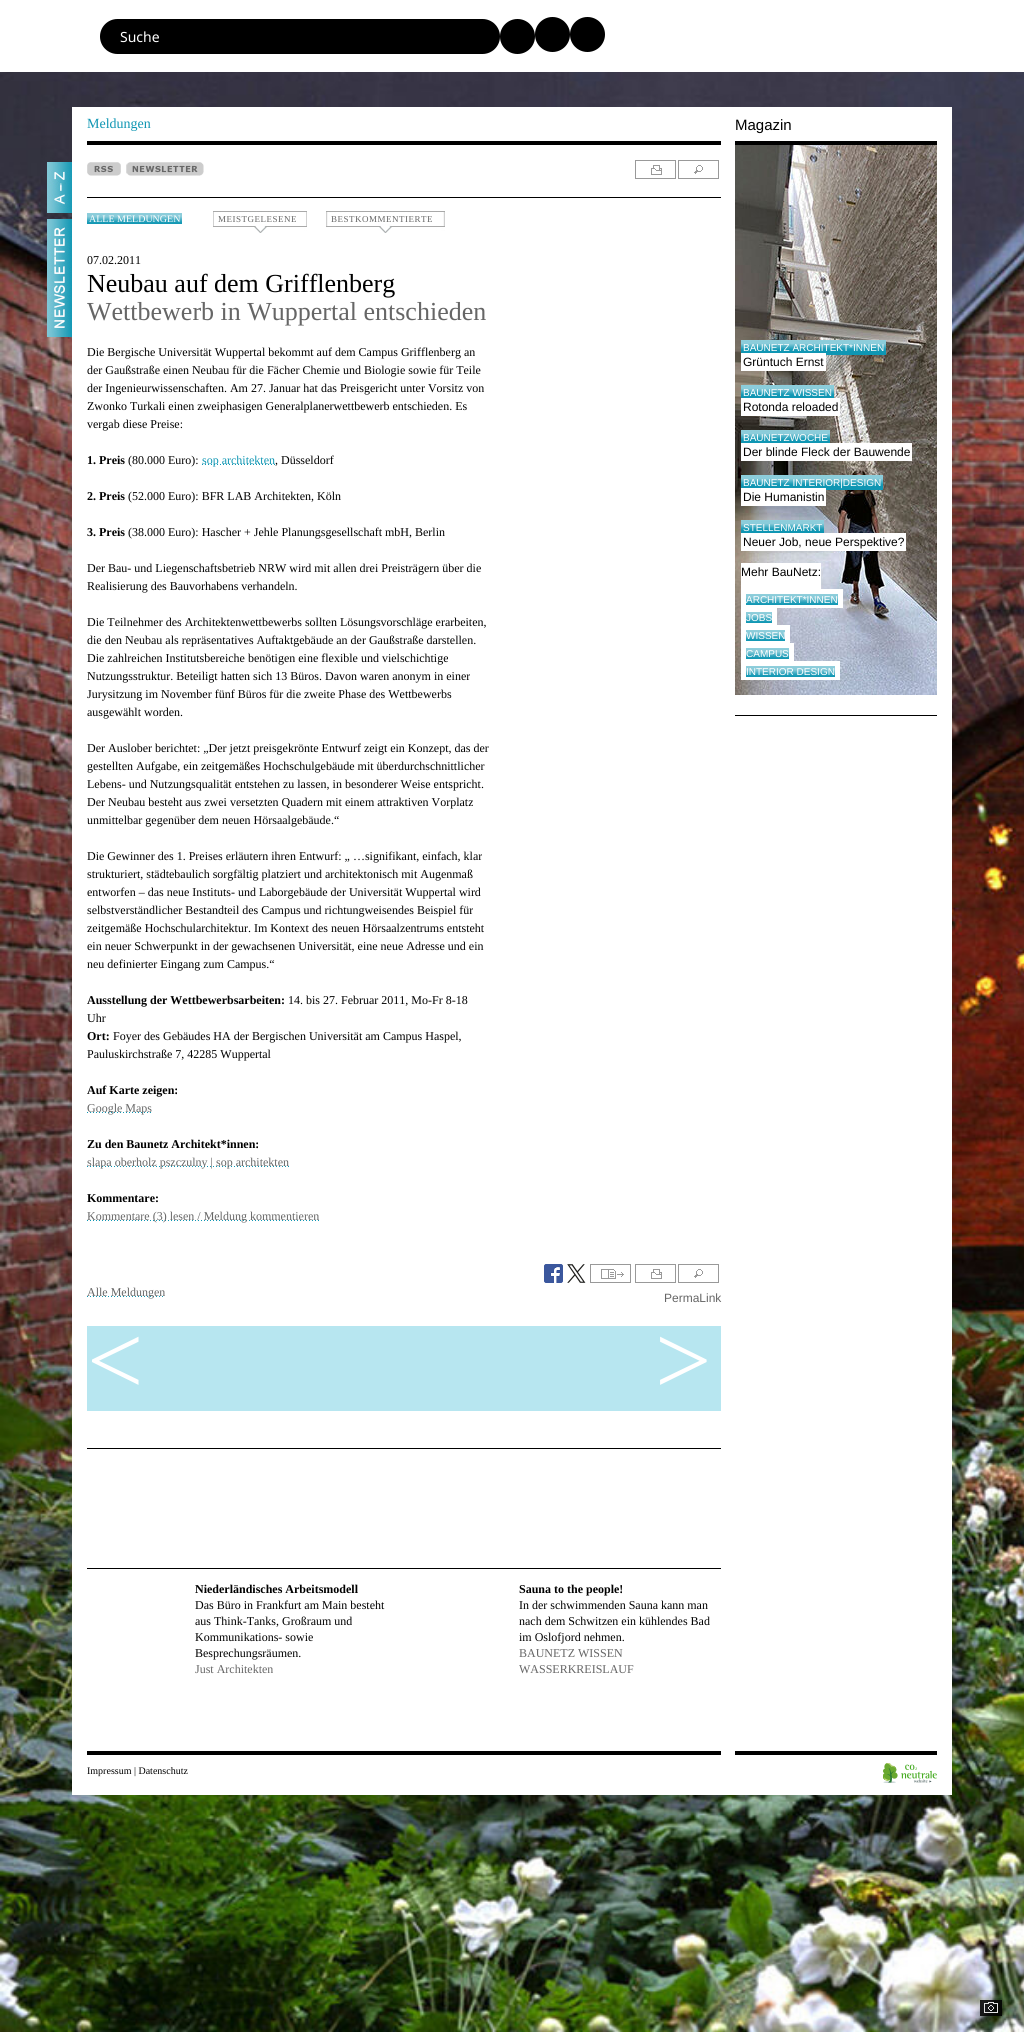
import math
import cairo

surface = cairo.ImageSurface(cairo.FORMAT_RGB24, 1024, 2032)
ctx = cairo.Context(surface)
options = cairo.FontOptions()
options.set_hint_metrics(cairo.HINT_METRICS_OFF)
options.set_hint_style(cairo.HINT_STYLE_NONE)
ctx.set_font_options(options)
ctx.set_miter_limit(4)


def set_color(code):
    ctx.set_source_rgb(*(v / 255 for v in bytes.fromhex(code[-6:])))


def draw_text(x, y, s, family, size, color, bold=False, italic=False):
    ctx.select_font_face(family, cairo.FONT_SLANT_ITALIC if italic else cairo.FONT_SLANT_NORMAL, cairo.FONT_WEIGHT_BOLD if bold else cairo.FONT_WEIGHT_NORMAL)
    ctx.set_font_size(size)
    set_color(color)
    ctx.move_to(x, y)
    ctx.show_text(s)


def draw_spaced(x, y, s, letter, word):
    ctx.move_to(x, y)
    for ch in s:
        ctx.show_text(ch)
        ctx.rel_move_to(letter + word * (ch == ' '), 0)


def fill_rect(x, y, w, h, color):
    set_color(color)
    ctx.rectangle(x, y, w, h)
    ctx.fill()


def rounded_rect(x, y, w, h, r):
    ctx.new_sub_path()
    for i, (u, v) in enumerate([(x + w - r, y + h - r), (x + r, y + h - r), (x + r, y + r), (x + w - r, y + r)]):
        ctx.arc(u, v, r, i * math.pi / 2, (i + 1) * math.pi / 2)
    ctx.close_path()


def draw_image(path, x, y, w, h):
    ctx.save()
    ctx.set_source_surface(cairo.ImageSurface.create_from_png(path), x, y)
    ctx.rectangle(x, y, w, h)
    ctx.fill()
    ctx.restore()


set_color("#ffffff")
ctx.paint()
draw_image("assets/img1.png", 0, 72, 1024, 1960)
set_color("#000000")
rounded_rect(100, 19, 400, 35, 17.5)
ctx.fill()
draw_text(120, 42, "Suche", "Noto Sans", 14, "#ffffff")
set_color("#000000")
ctx.new_path()
ctx.arc(517.5, 36.5, 17.5, 0, 2 * math.pi)
ctx.fill()
ctx.arc(552.5, 34.5, 17.5, 0, 2 * math.pi)
ctx.fill()
ctx.arc(587.5, 34.5, 17.5, 0, 2 * math.pi)
ctx.fill()
fill_rect(72, 107, 880, 1688, "#ffffff")
draw_text(87, 128, "Meldungen", "Liberation Serif", 14, "#0f96b3")
draw_text(735, 130, "Magazin", "Liberation Sans", 15, "#000000")
fill_rect(87, 141, 634, 4, "#000000")
fill_rect(735, 141, 202, 4, "#000000")
draw_image("assets/img2.png", 47, 162, 25, 51)
draw_image("assets/img3.png", 47, 219, 25, 118)
fill_rect(87, 197, 634, 1, "#000000")
draw_image("assets/img4.png", 87, 162, 34, 14)
draw_image("assets/img5.png", 126, 162, 78, 14)
draw_image("assets/img6.png", 635, 160, 41, 19)
draw_image("assets/img7.png", 678, 160, 41, 19)
draw_image("assets/img8.png", 87, 213, 95, 11)
draw_text(89, 222, "ALLE MELDUNGEN", "Liberation Serif", 10, "#ffffff")
draw_image("assets/img9.png", 213, 211, 94, 22)
ctx.set_font_size(9)
set_color("#666666")
draw_spaced(218, 222, "MEISTGELESENE", 0.5, 0)
draw_image("assets/img10.png", 326, 211, 119, 22)
draw_spaced(331, 222, "BESTKOMMENTIERTE", 0.5, 0)
draw_text(87, 264, "07.02.2011", "Liberation Serif", 12, "#000000")
draw_text(87, 292, "Neubau auf dem Grifflenberg", "Liberation Serif", 26, "#000000")
draw_text(87, 320, "Wettbewerb in Wuppertal entschieden", "Liberation Serif", 26, "#666666")
draw_text(87, 356, "Die Bergische Universität Wuppertal bekommt auf dem Campus Grifflenberg an", "Liberation Serif", 12, "#000000")
draw_text(87, 374, "der Gaußstraße einen Neubau für die Fächer Chemie und Biologie sowie für Teile", "Liberation Serif", 12, "#000000")
draw_text(87, 392, "der Ingenieurwissenschaften. Am 27. Januar hat das Preisgericht unter Vorsitz von", "Liberation Serif", 12, "#000000")
draw_text(87, 410, "Zwonko Turkali einen zweiphasigen Generalplanerwettbewerb entschieden. Es", "Liberation Serif", 12, "#000000")
draw_text(87, 428, "vergab diese Preise:", "Liberation Serif", 12, "#000000")
draw_text(87, 464, "1. Preis", "Liberation Serif", 12, "#000000", bold=True)
draw_text(128, 464, "(80.000 Euro):", "Liberation Serif", 12, "#000000")
draw_image("assets/img11.png", 202, 464, 73, 1)
draw_text(202, 464, "sop architekten", "Liberation Serif", 12, "#0f96b3")
draw_text(275, 464, ", Düsseldorf", "Liberation Serif", 12, "#000000")
draw_text(87, 500, "2. Preis", "Liberation Serif", 12, "#000000", bold=True)
draw_text(128, 500, "(52.000 Euro): BFR LAB Architekten, Köln", "Liberation Serif", 12, "#000000")
draw_text(87, 536, "3. Preis", "Liberation Serif", 12, "#000000", bold=True)
draw_text(128, 536, "(38.000 Euro): Hascher + Jehle Planungsgesellschaft mbH, Berlin", "Liberation Serif", 12, "#000000")
draw_text(87, 572, "Der Bau- und Liegenschaftsbetrieb NRW wird mit allen drei Preisträgern über die", "Liberation Serif", 12, "#000000")
draw_text(87, 590, "Realisierung des Bauvorhabens verhandeln.", "Liberation Serif", 12, "#000000")
draw_text(87, 626, "Die Teilnehmer des Architektenwettbewerbs sollten Lösungsvorschläge erarbeiten,", "Liberation Serif", 12, "#000000")
draw_text(87, 644, "die den Neubau als repräsentatives Auftaktgebäude an der Gaußstraße darstellen.", "Liberation Serif", 12, "#000000")
draw_text(87, 662, "Die zahlreichen Institutsbereiche benötigen eine flexible und vielschichtige", "Liberation Serif", 12, "#000000")
draw_text(87, 680, "Nutzungsstruktur. Beteiligt hatten sich 13 Büros. Davon waren anonym in einer", "Liberation Serif", 12, "#000000")
draw_text(87, 698, "Jurysitzung im November fünf Büros für die zweite Phase des Wettbewerbs", "Liberation Serif", 12, "#000000")
draw_text(87, 716, "ausgewählt worden.", "Liberation Serif", 12, "#000000")
draw_text(87, 752, "Der Auslober berichtet: „Der jetzt preisgekrönte Entwurf zeigt ein Konzept, das der", "Liberation Serif", 12, "#000000")
draw_text(87, 770, "gestellten Aufgabe, ein zeitgemäßes Hochschulgebäude mit überdurchschnittlicher", "Liberation Serif", 12, "#000000")
draw_text(87, 788, "Lebens- und Nutzungsqualität entstehen zu lassen, in besonderer Weise entspricht.", "Liberation Serif", 12, "#000000")
draw_text(87, 806, "Der Neubau besteht aus zwei versetzten Quadern mit einem attraktiven Vorplatz", "Liberation Serif", 12, "#000000")
draw_text(87, 824, "unmittelbar gegenüber dem neuen Hörsaalgebäude.“", "Liberation Serif", 12, "#000000")
draw_text(87, 860, "Die Gewinner des 1. Preises erläutern ihren Entwurf: „ …signifikant, einfach, klar", "Liberation Serif", 12, "#000000")
draw_text(87, 878, "strukturiert, städtebaulich sorgfältig platziert und architektonisch mit Augenmaß", "Liberation Serif", 12, "#000000")
draw_text(87, 896, "entworfen – das neue Instituts- und Laborgebäude der Universität Wuppertal wird", "Liberation Serif", 12, "#000000")
draw_text(87, 914, "selbstverständlicher Bestandteil des Campus und richtungweisendes Beispiel für", "Liberation Serif", 12, "#000000")
draw_text(87, 932, "zeitgemäße Hochschularchitektur. Im Kontext des neuen Hörsaalzentrums entsteht", "Liberation Serif", 12, "#000000")
draw_text(87, 950, "ein neuer Schwerpunkt in der gewachsenen Universität, eine neue Adresse und ein", "Liberation Serif", 12, "#000000")
draw_text(87, 968, "neu definierter Eingang zum Campus.“", "Liberation Serif", 12, "#000000")
draw_text(87, 1004, "Ausstellung der Wettbewerbsarbeiten:", "Liberation Serif", 12, "#000000", bold=True)
draw_text(288, 1004, "14. bis 27. Februar 2011, Mo-Fr 8-18", "Liberation Serif", 12, "#000000")
draw_text(87, 1022, "Uhr", "Liberation Serif", 12, "#000000")
draw_text(87, 1040, "Ort:", "Liberation Serif", 12, "#000000", bold=True)
draw_text(113, 1040, "Foyer des Gebäudes HA der Bergischen Universität am Campus Haspel,", "Liberation Serif", 12, "#000000")
draw_text(87, 1058, "Pauluskirchstraße 7, 42285 Wuppertal", "Liberation Serif", 12, "#000000")
draw_text(87, 1094, "Auf Karte zeigen:", "Liberation Serif", 12, "#000000", bold=True)
draw_image("assets/img12.png", 87, 1112, 64, 1)
draw_text(87, 1112, "Google Maps", "Liberation Serif", 12, "#666666")
draw_text(87, 1148, "Zu den Baunetz Architekt*innen:", "Liberation Serif", 12, "#000000", bold=True)
draw_image("assets/img13.png", 87, 1166, 202, 1)
draw_text(87, 1166, "slapa oberholz pszczulny | sop architekten", "Liberation Serif", 12, "#666666")
draw_text(87, 1202, "Kommentare:", "Liberation Serif", 12, "#000000", bold=True)
draw_image("assets/img14.png", 87, 1220, 232, 1)
draw_text(87, 1220, "Kommentare (3) lesen / Meldung kommentieren", "Liberation Serif", 12, "#666666")
draw_image("assets/img15.png", 544, 1264, 19, 19)
draw_image("assets/img16.png", 567, 1264, 19, 19)
draw_image("assets/img17.png", 590, 1264, 41, 19)
draw_image("assets/img6.png", 635, 1264, 41, 19)
draw_image("assets/img7.png", 678, 1264, 41, 19)
draw_image("assets/img18.png", 87, 1296, 76, 1)
draw_text(87, 1296, "Alle Meldungen", "Liberation Serif", 12, "#666666")
draw_text(664, 1302, "PermaLink", "Liberation Sans", 12, "#666666")
fill_rect(87, 1326, 634, 85, "#b7e6f0")
draw_text(87, 1394, "<", "Liberation Serif", 100, "#ffffff")
draw_text(655, 1394, ">", "Liberation Serif", 100, "#ffffff")
fill_rect(87, 1448, 634, 1, "#000000")
fill_rect(87, 1568, 634, 1, "#000000")
draw_text(195, 1593, "Niederländisches Arbeitsmodell", "Liberation Serif", 12, "#000000", bold=True)
draw_text(195, 1609, "Das Büro in Frankfurt am Main besteht", "Liberation Serif", 12, "#000000")
draw_text(195, 1625, "aus Think-Tanks, Großraum und", "Liberation Serif", 12, "#000000")
draw_text(195, 1641, "Kommunikations- sowie", "Liberation Serif", 12, "#000000")
draw_text(195, 1657, "Besprechungsräumen.", "Liberation Serif", 12, "#000000")
draw_text(195, 1673, "Just Architekten", "Liberation Serif", 12, "#666666")
draw_text(519, 1593, "Sauna to the people!", "Liberation Serif", 12, "#000000", bold=True)
draw_text(519, 1609, "In der schwimmenden Sauna kann man", "Liberation Serif", 12, "#000000")
draw_text(519, 1625, "nach dem Schwitzen ein kühlendes Bad", "Liberation Serif", 12, "#000000")
draw_text(519, 1641, "im Oslofjord nehmen.", "Liberation Serif", 12, "#000000")
draw_text(519, 1657, "BAUNETZ WISSEN", "Liberation Serif", 12, "#666666")
draw_text(519, 1673, "WASSERKREISLAUF", "Liberation Serif", 12, "#666666")
draw_image("assets/img19.png", 735, 145, 202, 550)
draw_image("assets/img20.png", 741, 340, 145, 11)
fill_rect(741, 351, 145, 4, "#0f96b3")
draw_text(743, 351, "BAUNETZ ARCHITEKT*INNEN", "Liberation Sans", 10, "#ffffff")
fill_rect(741, 353, 85, 18, "#ffffff")
draw_text(743, 366, "Grüntuch Ernst", "Liberation Sans", 12, "#000000")
draw_image("assets/img21.png", 741, 385, 93, 11)
fill_rect(741, 396, 93, 2, "#0f96b3")
draw_text(743, 396, "BAUNETZ WISSEN", "Liberation Sans", 10, "#ffffff")
fill_rect(741, 398, 99, 18, "#ffffff")
draw_text(743, 411, "Rotonda reloaded", "Liberation Sans", 12, "#000000")
draw_image("assets/img22.png", 741, 430, 89, 11)
fill_rect(741, 441, 89, 2, "#0f96b3")
draw_text(743, 441, "BAUNETZWOCHE", "Liberation Sans", 10, "#ffffff")
fill_rect(741, 443, 171, 18, "#ffffff")
draw_text(743, 456, "Der blinde Fleck der Bauwende", "Liberation Sans", 12, "#000000")
draw_image("assets/img23.png", 741, 475, 142, 11)
fill_rect(741, 486, 142, 4, "#0f96b3")
draw_text(743, 486, "BAUNETZ INTERIOR|DESIGN", "Liberation Sans", 10, "#ffffff")
fill_rect(741, 488, 85, 18, "#ffffff")
draw_text(743, 501, "Die Humanistin", "Liberation Sans", 12, "#000000")
draw_image("assets/img24.png", 741, 520, 83, 11)
fill_rect(741, 531, 83, 2, "#0f96b3")
draw_text(743, 531, "STELLENMARKT", "Liberation Sans", 10, "#ffffff")
fill_rect(741, 533, 165, 18, "#ffffff")
draw_text(743, 546, "Neuer Job, neue Perspektive?", "Liberation Sans", 12, "#000000")
fill_rect(741, 563, 80, 26, "#ffffff")
draw_text(741, 576, "Mehr BauNetz:", "Liberation Sans", 12, "#000000")
draw_image("assets/img25.png", 746, 594, 92, 11)
fill_rect(741, 589, 102, 5, "#ffffff")
fill_rect(838, 589, 5, 19, "#ffffff")
fill_rect(741, 605, 102, 3, "#ffffff")
fill_rect(741, 589, 5, 19, "#ffffff")
draw_text(746, 603, "ARCHITEKT*INNEN", "Liberation Sans", 10, "#ffffff")
draw_image("assets/img26.png", 746, 612, 26, 11)
fill_rect(741, 608, 36, 4, "#ffffff")
fill_rect(772, 607, 5, 19, "#ffffff")
fill_rect(741, 623, 36, 2, "#ffffff")
fill_rect(741, 607, 5, 19, "#ffffff")
draw_text(746, 621, "JOBS", "Liberation Sans", 10, "#ffffff")
draw_image("assets/img27.png", 746, 630, 39, 11)
fill_rect(741, 625, 49, 5, "#ffffff")
fill_rect(785, 625, 5, 19, "#ffffff")
fill_rect(741, 641, 49, 2, "#ffffff")
fill_rect(741, 625, 5, 19, "#ffffff")
draw_text(746, 639, "WISSEN", "Liberation Sans", 10, "#ffffff")
draw_image("assets/img28.png", 746, 648, 43, 11)
fill_rect(741, 643, 53, 5, "#ffffff")
fill_rect(789, 643, 5, 19, "#ffffff")
fill_rect(741, 659, 53, 2, "#ffffff")
fill_rect(741, 643, 5, 19, "#ffffff")
draw_text(746, 657, "CAMPUS", "Liberation Sans", 10, "#ffffff")
draw_image("assets/img22.png", 746, 666, 89, 11)
fill_rect(741, 661, 99, 5, "#ffffff")
fill_rect(835, 661, 5, 19, "#ffffff")
fill_rect(741, 677, 99, 3, "#ffffff")
fill_rect(741, 661, 5, 19, "#ffffff")
draw_text(746, 675, "INTERIOR DESIGN", "Liberation Sans", 10, "#ffffff")
fill_rect(735, 715, 202, 1, "#000000")
fill_rect(87, 1751, 634, 4, "#000000")
fill_rect(735, 1751, 202, 4, "#000000")
draw_text(87, 1774, "Impressum | Datenschutz", "Liberation Serif", 10, "#000000")
draw_image("assets/img29.png", 883, 1763, 54, 20)
draw_image("assets/img30.png", 980, 2000, 22, 16)
surface.write_to_png("output.png")
